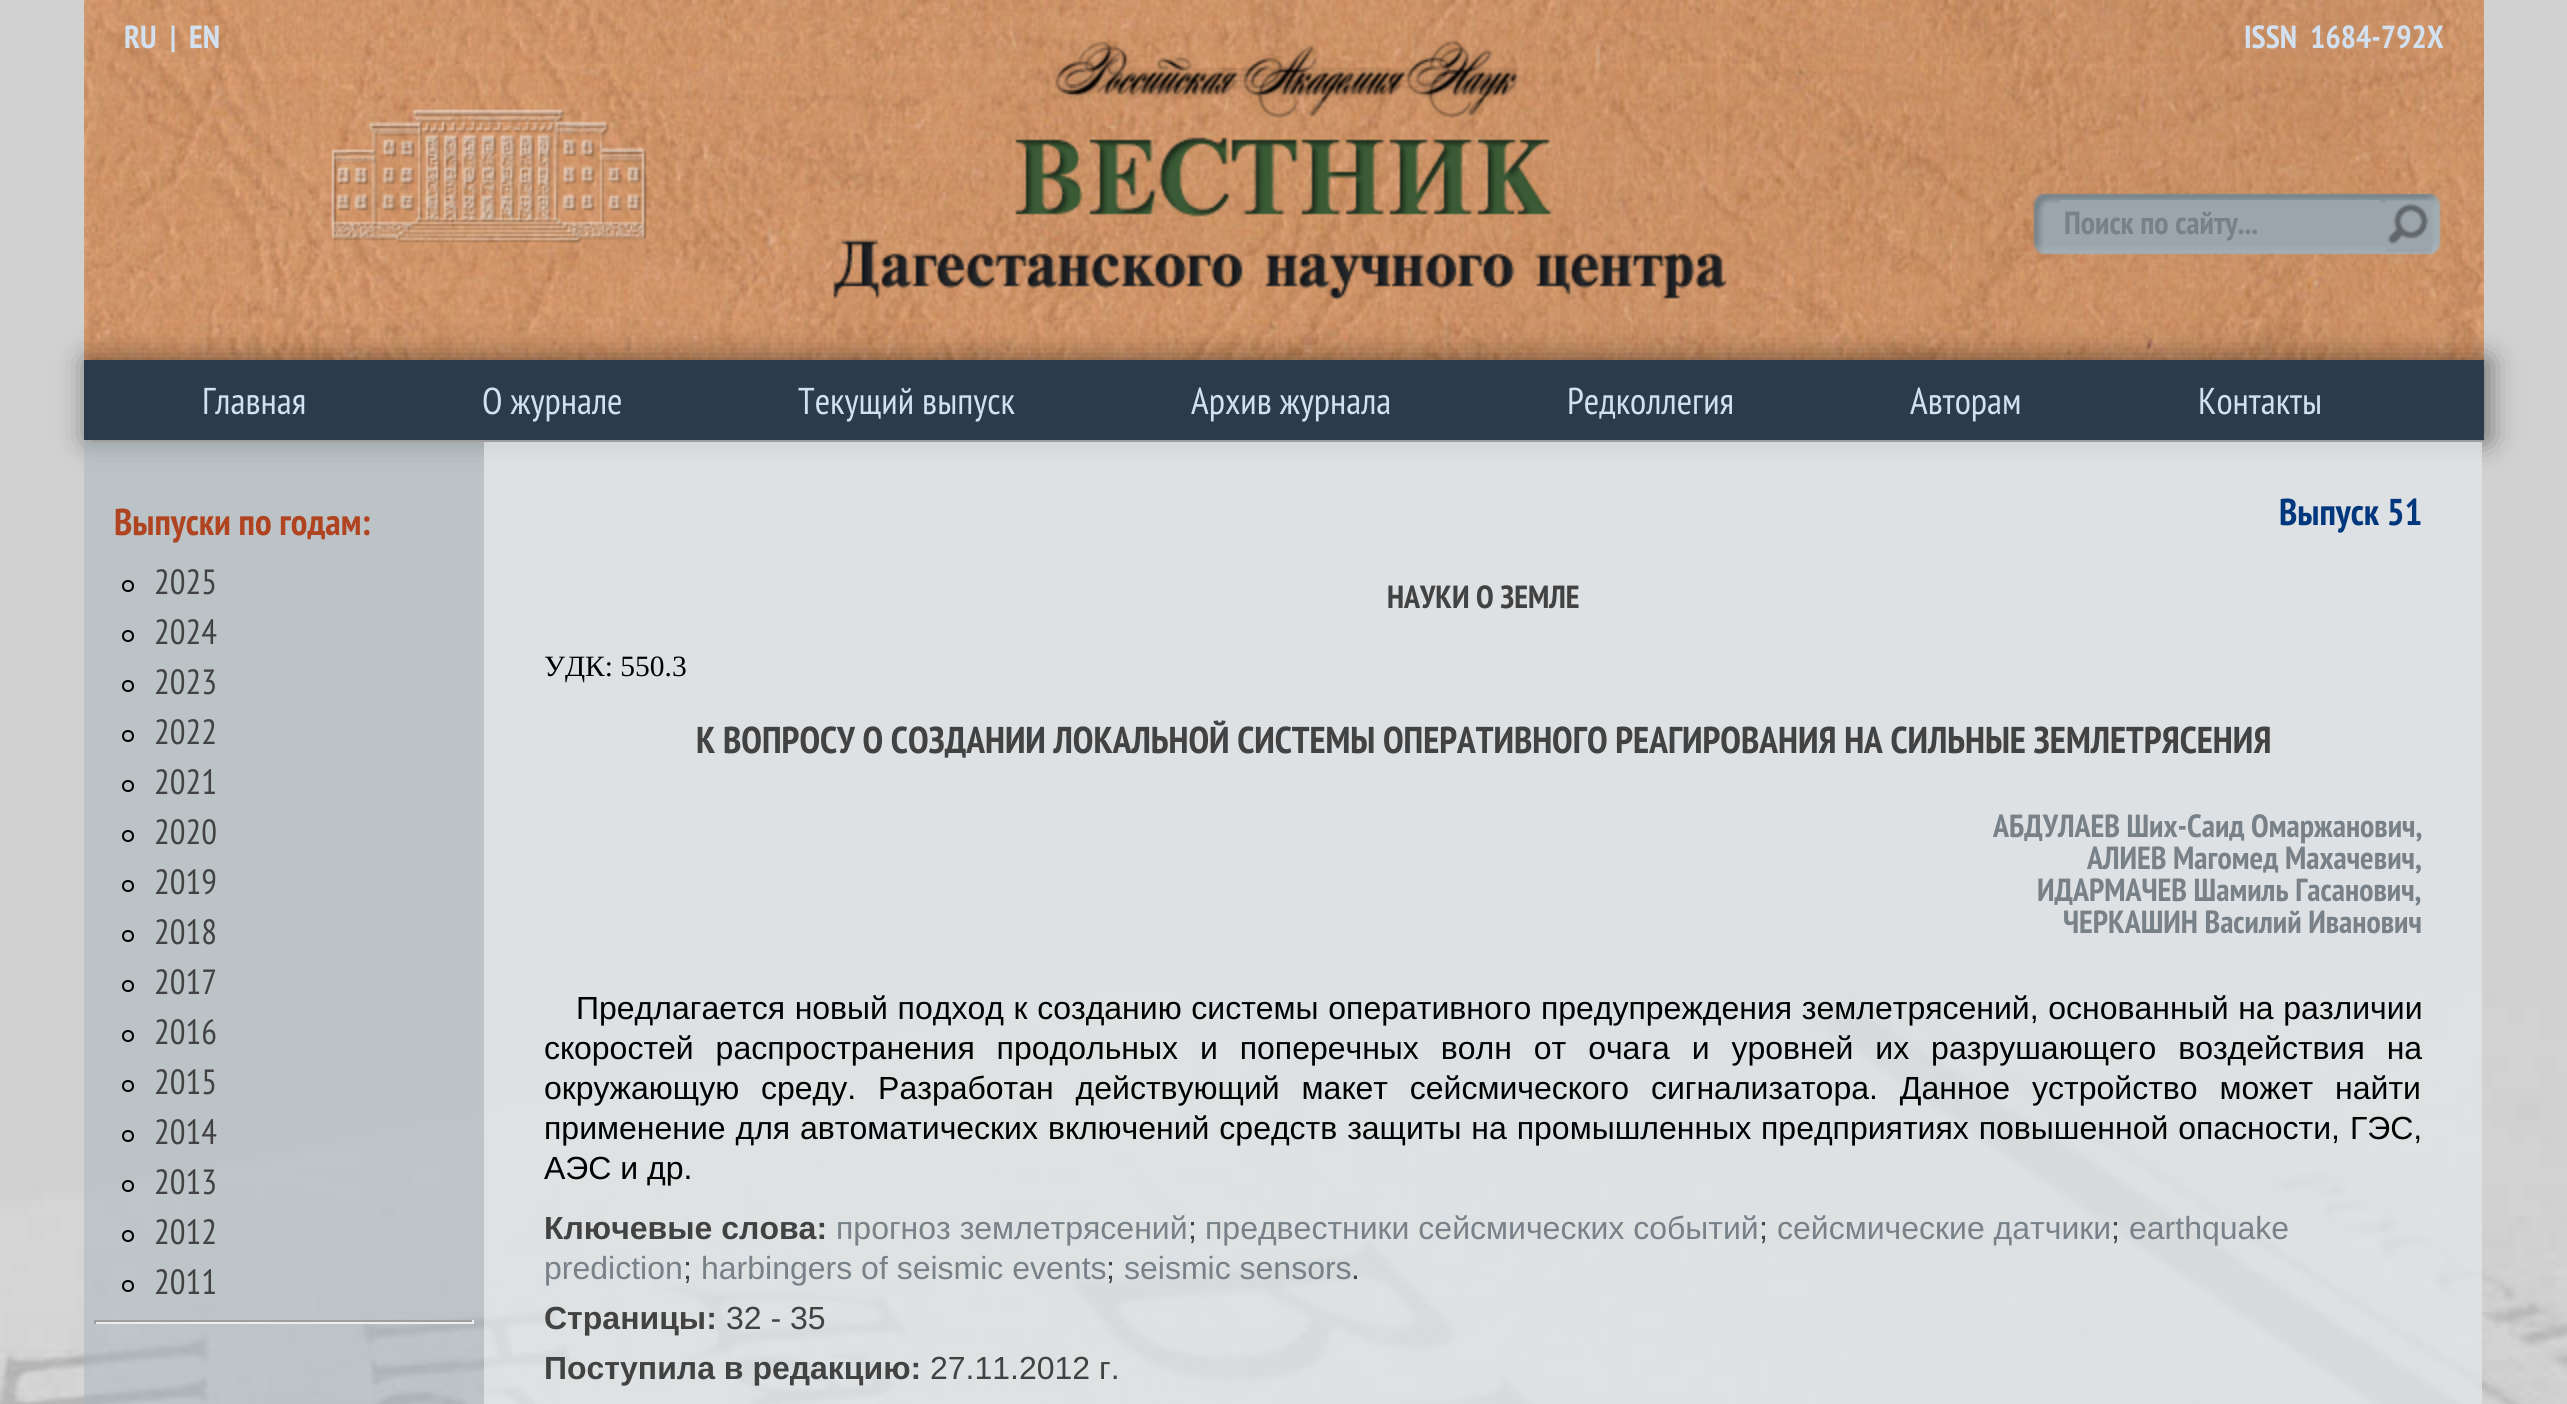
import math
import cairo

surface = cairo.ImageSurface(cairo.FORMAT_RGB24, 2567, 1404)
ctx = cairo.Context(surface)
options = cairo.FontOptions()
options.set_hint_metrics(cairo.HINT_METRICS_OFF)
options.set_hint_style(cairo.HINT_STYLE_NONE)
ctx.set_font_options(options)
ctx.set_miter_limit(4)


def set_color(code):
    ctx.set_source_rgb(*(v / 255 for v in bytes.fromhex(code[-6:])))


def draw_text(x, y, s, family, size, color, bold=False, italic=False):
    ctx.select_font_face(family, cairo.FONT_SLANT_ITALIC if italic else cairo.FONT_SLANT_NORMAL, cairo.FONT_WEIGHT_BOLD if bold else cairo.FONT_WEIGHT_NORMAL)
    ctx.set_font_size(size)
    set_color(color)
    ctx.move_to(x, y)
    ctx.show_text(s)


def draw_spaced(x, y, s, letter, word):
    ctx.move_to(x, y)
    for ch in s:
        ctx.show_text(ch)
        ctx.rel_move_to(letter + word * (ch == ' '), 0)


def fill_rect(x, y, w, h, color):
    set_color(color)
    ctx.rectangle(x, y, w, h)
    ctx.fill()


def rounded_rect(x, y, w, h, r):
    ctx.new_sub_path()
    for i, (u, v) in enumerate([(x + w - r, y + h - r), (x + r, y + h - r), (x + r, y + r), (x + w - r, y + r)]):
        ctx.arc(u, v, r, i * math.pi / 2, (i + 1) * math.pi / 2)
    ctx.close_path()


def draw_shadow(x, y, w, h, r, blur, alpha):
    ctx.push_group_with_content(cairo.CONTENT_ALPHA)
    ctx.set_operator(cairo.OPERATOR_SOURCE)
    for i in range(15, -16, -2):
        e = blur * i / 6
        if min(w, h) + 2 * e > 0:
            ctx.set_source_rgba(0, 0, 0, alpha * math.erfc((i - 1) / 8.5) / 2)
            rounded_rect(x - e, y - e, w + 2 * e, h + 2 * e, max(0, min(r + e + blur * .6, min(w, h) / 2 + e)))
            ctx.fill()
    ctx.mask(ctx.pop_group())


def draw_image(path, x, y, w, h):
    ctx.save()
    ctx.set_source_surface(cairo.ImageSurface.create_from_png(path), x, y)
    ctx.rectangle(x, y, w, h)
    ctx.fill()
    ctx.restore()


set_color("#d1d1d1")
ctx.paint()
draw_image("assets/img1.png", 0, 992, 2567, 412)
draw_image("assets/img2.png", 84, 0, 2400, 360)
draw_text(124, 48, "RU", "PT Sans Narrow", 32, "#d2e0f0", bold=True)
draw_text(170, 48, "|", "PT Sans Narrow", 32, "#d2e0f0", bold=True)
draw_text(189, 48, "EN", "PT Sans Narrow", 32, "#d2e0f0", bold=True)
draw_image("assets/img3.png", 331, 109, 316, 134)
draw_image("assets/img4.png", 833, 40, 894, 260)
draw_text(2244, 48, "ISSN  1684-792X", "PT Sans Narrow", 32, "#d2e0f0", bold=True)
draw_image("assets/img5.png", 2033, 193, 27, 62)
draw_image("assets/img6.png", 2060, 193, 320, 62)
fill_rect(2060, 200, 320, 4, "#9ba5ab")
draw_text(2064, 234, "Поиск по сайту...", "PT Sans Narrow", 32, "#778187", bold=True)
draw_image("assets/img7.png", 2380, 193, 61, 62)
set_color("#000000")
draw_shadow(88, 360, 2400, 80, 0, 15, 0.5)
fill_rect(84, 360, 2400, 80, "#2b3b4c")
draw_text(202, 414, "Главная", "PT Sans Narrow", 37.35, "#d2e0f0")
draw_text(482, 414, "О журнале", "PT Sans Narrow", 37.35, "#d2e0f0")
draw_text(798, 414, "Текущий выпуск", "PT Sans Narrow", 37.35, "#d2e0f0")
draw_text(1191, 414, "Архив журнала", "PT Sans Narrow", 37.35, "#d2e0f0")
draw_text(1567, 414, "Редколлегия", "PT Sans Narrow", 37.35, "#d2e0f0")
draw_text(1910, 414, "Авторам", "PT Sans Narrow", 37.35, "#d2e0f0")
draw_text(2198, 414, "Контакты", "PT Sans Narrow", 37.35, "#d2e0f0")
ctx.set_source_rgba(0.655, 0.718, 0.741, 0.5)
ctx.rectangle(84, 442, 2398, 962)
ctx.fill()
draw_text(114, 535, "Выпуски по годам:", "PT Sans Narrow", 37.35, "#b04421", bold=True)
ctx.new_path()
ctx.arc(128, 586, 5, 0, 2 * math.pi)
set_color("#000000")
ctx.stroke()
draw_text(154, 594, "2025", "PT Sans Narrow", 35, "#424242")
ctx.new_path()
ctx.arc(128, 636, 5, 0, 2 * math.pi)
set_color("#000000")
ctx.stroke()
draw_text(154, 644, "2024", "PT Sans Narrow", 35, "#424242")
ctx.new_path()
ctx.arc(128, 686, 5, 0, 2 * math.pi)
set_color("#000000")
ctx.stroke()
draw_text(154, 694, "2023", "PT Sans Narrow", 35, "#424242")
ctx.new_path()
ctx.arc(128, 736, 5, 0, 2 * math.pi)
set_color("#000000")
ctx.stroke()
draw_text(154, 744, "2022", "PT Sans Narrow", 35, "#424242")
ctx.new_path()
ctx.arc(128, 786, 5, 0, 2 * math.pi)
set_color("#000000")
ctx.stroke()
draw_text(154, 794, "2021", "PT Sans Narrow", 35, "#424242")
ctx.new_path()
ctx.arc(128, 836, 5, 0, 2 * math.pi)
set_color("#000000")
ctx.stroke()
draw_text(154, 844, "2020", "PT Sans Narrow", 35, "#424242")
ctx.new_path()
ctx.arc(128, 886, 5, 0, 2 * math.pi)
set_color("#000000")
ctx.stroke()
draw_text(154, 894, "2019", "PT Sans Narrow", 35, "#424242")
ctx.new_path()
ctx.arc(128, 936, 5, 0, 2 * math.pi)
set_color("#000000")
ctx.stroke()
draw_text(154, 944, "2018", "PT Sans Narrow", 35, "#424242")
ctx.new_path()
ctx.arc(128, 986, 5, 0, 2 * math.pi)
set_color("#000000")
ctx.stroke()
draw_text(154, 994, "2017", "PT Sans Narrow", 35, "#424242")
ctx.new_path()
ctx.arc(128, 1036, 5, 0, 2 * math.pi)
set_color("#000000")
ctx.stroke()
draw_text(154, 1044, "2016", "PT Sans Narrow", 35, "#424242")
ctx.new_path()
ctx.arc(128, 1086, 5, 0, 2 * math.pi)
set_color("#000000")
ctx.stroke()
draw_text(154, 1094, "2015", "PT Sans Narrow", 35, "#424242")
ctx.new_path()
ctx.arc(128, 1136, 5, 0, 2 * math.pi)
set_color("#000000")
ctx.stroke()
draw_text(154, 1144, "2014", "PT Sans Narrow", 35, "#424242")
ctx.new_path()
ctx.arc(128, 1186, 5, 0, 2 * math.pi)
set_color("#000000")
ctx.stroke()
draw_text(154, 1194, "2013", "PT Sans Narrow", 35, "#424242")
ctx.new_path()
ctx.arc(128, 1236, 5, 0, 2 * math.pi)
set_color("#000000")
ctx.stroke()
draw_text(154, 1244, "2012", "PT Sans Narrow", 35, "#424242")
ctx.new_path()
ctx.arc(128, 1286, 5, 0, 2 * math.pi)
set_color("#000000")
ctx.stroke()
draw_text(154, 1294, "2011", "PT Sans Narrow", 35, "#424242")
fill_rect(94, 1320, 380, 2, "#9f9f9f")
fill_rect(472, 1320, 2, 4, "#eeeeee")
fill_rect(94, 1322, 380, 2, "#eeeeee")
fill_rect(94, 1320, 2, 4, "#9f9f9f")
ctx.set_source_rgba(1, 1, 1, 0.5)
ctx.rectangle(484, 442, 1998, 962)
ctx.fill()
draw_text(2279, 525, "Выпуск 51", "PT Sans Narrow", 37.35, "#00377d", bold=True)
draw_text(1387, 608, "НАУКИ О ЗЕМЛЕ", "PT Sans Narrow", 32, "#424242", bold=True)
draw_text(544, 676, "УДК: 550.3", "Liberation Serif", 29.5, "#000000")
draw_text(696, 753, "К ВОПРОСУ О СОЗДАНИИ ЛОКАЛЬНОЙ СИСТЕМЫ ОПЕРАТИВНОГО РЕАГИРОВАНИЯ НА СИЛЬНЫЕ ЗЕМЛЕТРЯСЕНИЯ", "PT Sans Narrow", 37.35, "#424242", bold=True)
draw_text(1993, 837, "АБДУЛАЕВ Ших-Саид Омаржанович,", "PT Sans Narrow", 32, "#778187", bold=True)
draw_text(2087, 869, "АЛИЕВ Магомед Махачевич,", "PT Sans Narrow", 32, "#778187", bold=True)
draw_text(2037, 901, "ИДАРМАЧЕВ Шамиль Гасанович,", "PT Sans Narrow", 32, "#778187", bold=True)
draw_text(2063, 933, "ЧЕРКАШИН Василий Иванович", "PT Sans Narrow", 32, "#778187", bold=True)
ctx.select_font_face("Liberation Sans")
set_color("#000000")
draw_spaced(576, 1019, "Предлагается новый подход к созданию системы оперативного предупреждения землетрясений, основанный на различии", 0, 0.75)
draw_spaced(544, 1059, "скоростей распространения продольных и поперечных волн от очага и уровней их разрушающего воздействия на", 0, 13)
draw_spaced(544, 1099, "окружающую среду. Разработан действующий макет сейсмического сигнализатора. Данное устройство может найти", 0, 13)
draw_spaced(544, 1139, "применение для автоматических включений средств защиты на промышленных предприятиях повышенной опасности, ГЭС,", 0, 1)
draw_text(544, 1179, "АЭС и др.", "Liberation Sans", 32, "#000000")
draw_text(544, 1239, "Ключевые слова:", "Liberation Sans", 32, "#424242", bold=True)
draw_text(836, 1239, "прогноз землетрясений", "Liberation Sans", 32, "#778187")
draw_text(1188, 1239, ";", "Liberation Sans", 32, "#424242")
draw_text(1205, 1239, "предвестники сейсмических событий", "Liberation Sans", 32, "#778187")
draw_text(1759, 1239, ";", "Liberation Sans", 32, "#424242")
draw_text(1777, 1239, "сейсмические датчики", "Liberation Sans", 32, "#778187")
draw_text(2111, 1239, ";", "Liberation Sans", 32, "#424242")
draw_text(2129, 1239, "earthquake", "Liberation Sans", 32, "#778187")
draw_text(544, 1279, "prediction", "Liberation Sans", 32, "#778187")
draw_text(683, 1279, ";", "Liberation Sans", 32, "#424242")
draw_text(701, 1279, "harbingers of seismic events", "Liberation Sans", 32, "#778187")
draw_text(1106, 1279, ";", "Liberation Sans", 32, "#424242")
draw_text(1124, 1279, "seismic sensors", "Liberation Sans", 32, "#778187")
draw_text(1351, 1279, ".", "Liberation Sans", 32, "#424242")
draw_text(544, 1329, "Страницы:", "Liberation Sans", 32, "#424242", bold=True)
draw_text(726, 1329, "32 - 35", "Liberation Sans", 32, "#424242")
draw_text(544, 1379, "Поступила в редакцию:", "Liberation Sans", 32, "#424242", bold=True)
draw_text(930, 1379, "27.11.2012 г.", "Liberation Sans", 32, "#424242")
surface.write_to_png("output.png")
